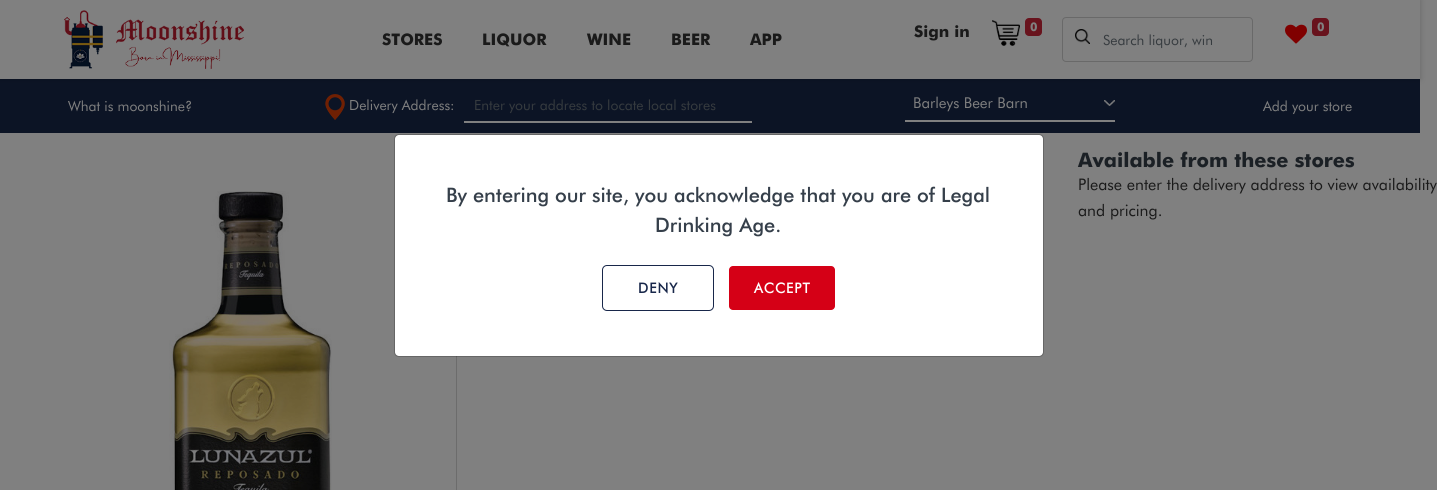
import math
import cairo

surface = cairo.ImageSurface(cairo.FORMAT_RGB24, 1437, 490)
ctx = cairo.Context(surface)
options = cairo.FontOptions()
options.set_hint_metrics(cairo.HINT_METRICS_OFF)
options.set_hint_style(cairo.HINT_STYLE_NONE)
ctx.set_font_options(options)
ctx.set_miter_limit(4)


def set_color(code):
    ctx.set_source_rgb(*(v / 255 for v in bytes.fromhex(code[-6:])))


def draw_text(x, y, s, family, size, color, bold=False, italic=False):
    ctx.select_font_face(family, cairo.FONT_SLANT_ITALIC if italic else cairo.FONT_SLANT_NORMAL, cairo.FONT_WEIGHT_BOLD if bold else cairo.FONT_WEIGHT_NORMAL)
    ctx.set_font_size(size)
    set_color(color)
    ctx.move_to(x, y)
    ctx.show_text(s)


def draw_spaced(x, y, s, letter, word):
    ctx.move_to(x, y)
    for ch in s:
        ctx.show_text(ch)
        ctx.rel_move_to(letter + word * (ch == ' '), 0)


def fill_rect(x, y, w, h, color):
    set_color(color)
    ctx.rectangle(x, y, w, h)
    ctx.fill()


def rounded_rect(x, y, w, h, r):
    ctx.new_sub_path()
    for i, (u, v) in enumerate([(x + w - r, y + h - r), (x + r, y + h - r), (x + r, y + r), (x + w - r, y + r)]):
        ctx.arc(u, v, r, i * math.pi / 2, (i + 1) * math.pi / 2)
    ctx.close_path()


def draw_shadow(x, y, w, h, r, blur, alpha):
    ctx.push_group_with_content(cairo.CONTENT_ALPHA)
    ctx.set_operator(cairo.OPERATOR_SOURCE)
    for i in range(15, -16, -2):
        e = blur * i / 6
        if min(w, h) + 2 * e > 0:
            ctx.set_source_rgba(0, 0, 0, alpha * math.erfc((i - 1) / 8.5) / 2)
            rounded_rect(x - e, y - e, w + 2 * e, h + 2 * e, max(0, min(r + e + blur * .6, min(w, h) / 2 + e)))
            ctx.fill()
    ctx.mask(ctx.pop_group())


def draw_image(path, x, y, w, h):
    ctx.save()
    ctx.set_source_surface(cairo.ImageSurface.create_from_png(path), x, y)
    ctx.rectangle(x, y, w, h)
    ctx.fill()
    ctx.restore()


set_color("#808080")
ctx.paint()
fill_rect(0, 79, 1420, 54, "#0c1425")
ctx.save()
ctx.set_fill_rule(cairo.FILL_RULE_EVEN_ODD)
ctx.new_path()
ctx.move_to(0, 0)
ctx.line_to(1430, 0)
ctx.line_to(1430, 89)
ctx.line_to(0, 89)
ctx.close_path()
ctx.move_to(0, 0)
ctx.line_to(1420, 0)
ctx.line_to(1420, 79)
ctx.line_to(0, 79)
ctx.close_path()
ctx.clip()
set_color("#000000")
draw_shadow(0, 0, 1420, 79, 0, 3, 0.2)
ctx.restore()
draw_image("assets/img1.png", 64, 10, 180, 59)
draw_text(382, 45, "STORES", "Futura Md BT", 16, "#1a1a1a", bold=True)
draw_text(482, 45, "LIQUOR", "Futura Md BT", 16, "#1a1a1a", bold=True)
draw_text(587, 45, "WINE", "Futura Md BT", 16, "#1a1a1a", bold=True)
draw_text(671, 45, "BEER", "Futura Md BT", 16, "#1a1a1a", bold=True)
draw_text(750, 45, "APP", "Futura Md BT", 16, "#1a1a1a", bold=True)
draw_text(914, 37, "Sign in", "Futura Md BT", 16, "#1a1a1a", bold=True)
draw_image("assets/img2.png", 992, 20, 28, 26)
set_color("#68131d")
rounded_rect(1025, 18, 17, 18, 4)
ctx.fill()
draw_text(1030, 31, "0", "Futura Md BT", 12, "#808080", bold=True)
rounded_rect(1062.5, 17.5, 190, 44, 3.5)
set_color("#696969")
ctx.set_line_width(1)
ctx.stroke()
draw_image("assets/img3.png", 1075, 29, 15, 15)
draw_text(1103, 45, "Search liquor, win", "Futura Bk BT", 14, "#363b3f")
draw_image("assets/img4.png", 1285, 24, 22, 20)
set_color("#68131d")
rounded_rect(1312, 18, 17, 18, 4)
ctx.fill()
draw_text(1317, 31, "0", "Futura Md BT", 12, "#808080", bold=True)
draw_text(68, 111, "What is moonshine?", "Futura Bk BT", 14, "#808080")
draw_image("assets/img5.png", 325, 94, 20, 26)
draw_text(349, 110, "Delivery Address:", "Futura Bk BT", 14, "#808080")
fill_rect(464, 121, 288, 2, "#808080")
draw_text(474, 110, "Enter your address to locate local stores", "Futura Bk BT", 14, "#363b3f")
draw_image("assets/img6.png", 1104, 100, 11, 6)
fill_rect(905, 120, 210, 2, "#808080")
draw_text(913, 108, "Barleys Beer Barn", "Futura Bk BT", 15, "#808080")
draw_text(1263, 111, "Add your store", "Futura Bk BT", 14, "#808080")
fill_rect(456, 356, 1, 134, "#6c6c6c")
draw_image("assets/img7.png", 169, 191, 163, 299)
draw_text(1078, 167, "Available from these stores", "Futura Md BT", 20, "#1b2025", bold=True)
draw_text(1078, 190, "Please enter the delivery address to view availability", "Futura Bk BT", 16, "#1a1a1a")
draw_text(1078, 216, "and pricing.", "Futura Bk BT", 16, "#1a1a1a")
set_color("#ffffff")
rounded_rect(395, 135, 648, 221, 4)
ctx.fill()
rounded_rect(394.5, 134.5, 649, 222, 4.5)
ctx.set_source_rgba(0, 0, 0, 0.2)
ctx.stroke()
draw_text(446, 202, "By entering our site, you acknowledge that you are of Legal", "Futura Md BT Medium", 20, "#353f4a")
draw_text(655, 232, "Drinking Age.", "Futura Md BT Medium", 20, "#353f4a")
rounded_rect(602.5, 265.5, 111, 45, 4.5)
set_color("#18274a")
ctx.stroke()
ctx.select_font_face("Futura Bk BT", cairo.FONT_SLANT_NORMAL, cairo.FONT_WEIGHT_BOLD)
ctx.set_font_size(14)
draw_spaced(638, 293, "DENY", 1, 0)
set_color("#d50016")
rounded_rect(729, 266, 106, 44, 4)
ctx.fill()
set_color("#ffffff")
draw_spaced(754, 293, "ACCEPT", 1, 0)
surface.write_to_png("output.png")
